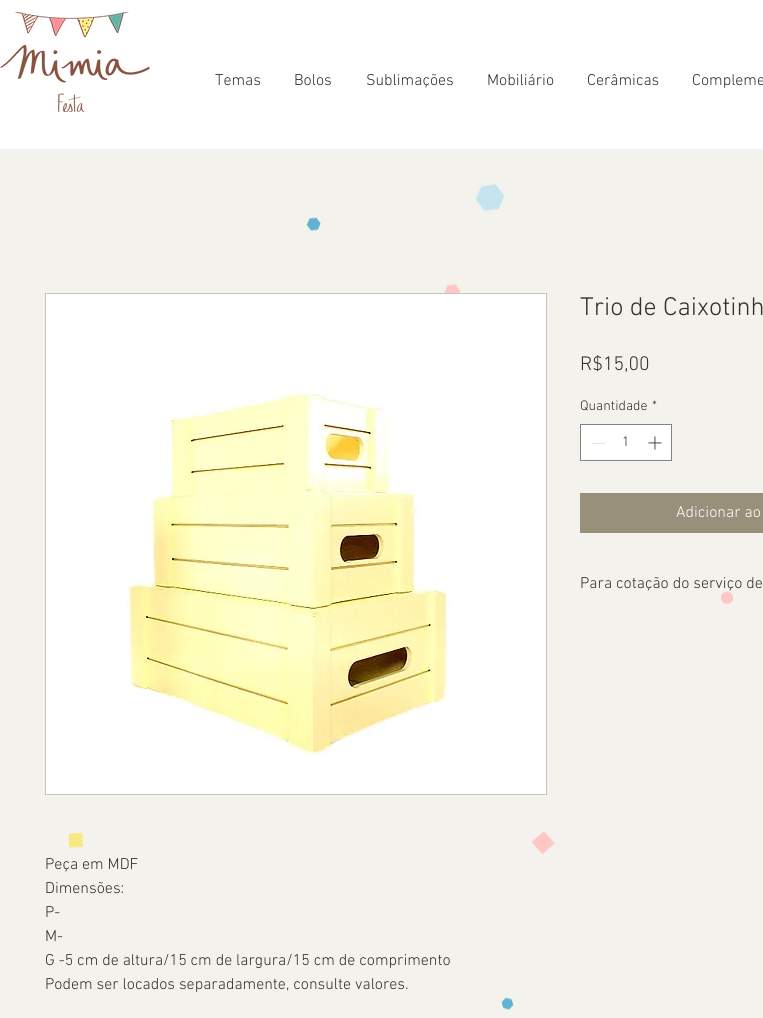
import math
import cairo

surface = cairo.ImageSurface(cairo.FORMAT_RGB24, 763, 1018)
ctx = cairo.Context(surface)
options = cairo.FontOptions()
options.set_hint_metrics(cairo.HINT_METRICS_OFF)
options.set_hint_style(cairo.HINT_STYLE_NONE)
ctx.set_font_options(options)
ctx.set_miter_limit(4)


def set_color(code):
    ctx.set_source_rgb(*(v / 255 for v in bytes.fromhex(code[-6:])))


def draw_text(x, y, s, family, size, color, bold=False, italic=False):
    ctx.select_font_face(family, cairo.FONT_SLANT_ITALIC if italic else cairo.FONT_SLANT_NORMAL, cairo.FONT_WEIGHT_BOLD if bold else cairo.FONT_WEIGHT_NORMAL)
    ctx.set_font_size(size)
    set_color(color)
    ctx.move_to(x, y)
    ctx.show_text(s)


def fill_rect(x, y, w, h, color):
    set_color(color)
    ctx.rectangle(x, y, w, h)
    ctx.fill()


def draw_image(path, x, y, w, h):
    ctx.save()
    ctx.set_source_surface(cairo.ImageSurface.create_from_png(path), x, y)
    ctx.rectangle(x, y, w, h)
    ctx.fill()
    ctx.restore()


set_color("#ffffff")
ctx.paint()
draw_image("assets/img1.png", 0, 12, 150, 100)
draw_text(215, 85, "Temas", "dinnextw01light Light", 16, "#313131")
draw_text(294, 85, "Bolos", "dinnextw01light Light", 16, "#313131")
draw_text(366, 85, "Sublimações", "dinnextw01light Light", 16, "#313131")
draw_text(487, 85, "Mobiliário", "dinnextw01light Light", 16, "#313131")
draw_text(587, 85, "Cerâmicas", "dinnextw01light Light", 16, "#313131")
draw_text(692, 85, "Compleme", "dinnextw01light Light", 16, "#313131")
draw_image("assets/img4.png", 0, 149, 763, 869)
draw_text(580, 315, "Trio de Caixotinh", "dinnextw01light Light", 26, "#313131")
draw_text(580, 370, "R$15,00", "dinnextw01light Light", 20, "#313131")
draw_text(580, 410, "Quantidade", "dinnextw01light Light", 14, "#313131")
draw_text(652, 410, "*", "dinnextw01light Light", 14, "#313131")
set_color("#ffffff")
ctx.rectangle(580.5, 424.5, 91, 36)
ctx.fill_preserve()
set_color("#838383")
ctx.set_line_width(1)
ctx.stroke()
fill_rect(592, 443, 13, 1, "#e3e3e3")
draw_text(622, 446, "1", "dinnextw01light Light", 14, "#313131")
draw_image("assets/img2.png", 648, 436, 14, 14)
fill_rect(580, 493, 183, 40, "#99907c")
draw_text(676, 517, "Adicionar ao", "dinnextw01light Light", 16, "#ffffff")
draw_text(580, 588, "Para cotação do serviço de", "dinnextw01light Light", 16, "#313131")
ctx.rectangle(45.5, 293.5, 501, 501)
set_color("#c4c4c4")
ctx.stroke()
draw_image("assets/img3.png", 46, 294, 500, 500)
draw_text(45, 869, "Peça em MDF", "dinnextw01light Light", 16, "#313131")
draw_text(45, 893, "Dimensões:", "dinnextw01light Light", 16, "#313131")
draw_text(45, 917, "P-", "dinnextw01light Light", 16, "#313131")
draw_text(45, 941, "M-", "dinnextw01light Light", 16, "#313131")
draw_text(45, 965, "G -5 cm de altura/15 cm de largura/15 cm de comprimento", "dinnextw01light Light", 16, "#313131")
draw_text(45, 989, "Podem ser locados separadamente, consulte valores.", "dinnextw01light Light", 16, "#313131")
surface.write_to_png("output.png")
